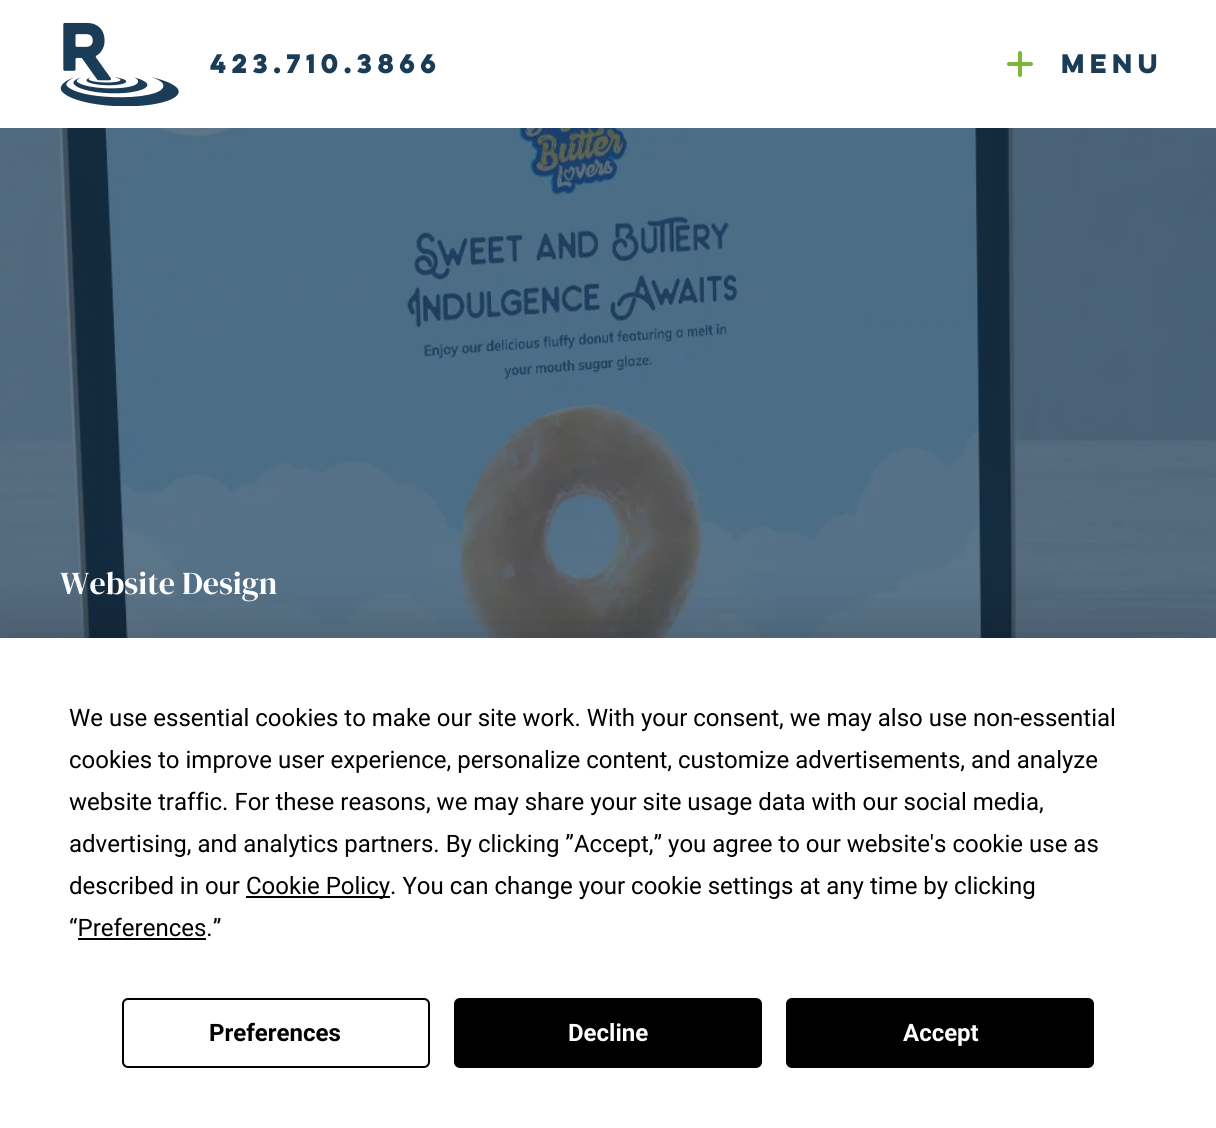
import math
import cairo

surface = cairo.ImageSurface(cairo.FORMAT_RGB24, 1216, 1128)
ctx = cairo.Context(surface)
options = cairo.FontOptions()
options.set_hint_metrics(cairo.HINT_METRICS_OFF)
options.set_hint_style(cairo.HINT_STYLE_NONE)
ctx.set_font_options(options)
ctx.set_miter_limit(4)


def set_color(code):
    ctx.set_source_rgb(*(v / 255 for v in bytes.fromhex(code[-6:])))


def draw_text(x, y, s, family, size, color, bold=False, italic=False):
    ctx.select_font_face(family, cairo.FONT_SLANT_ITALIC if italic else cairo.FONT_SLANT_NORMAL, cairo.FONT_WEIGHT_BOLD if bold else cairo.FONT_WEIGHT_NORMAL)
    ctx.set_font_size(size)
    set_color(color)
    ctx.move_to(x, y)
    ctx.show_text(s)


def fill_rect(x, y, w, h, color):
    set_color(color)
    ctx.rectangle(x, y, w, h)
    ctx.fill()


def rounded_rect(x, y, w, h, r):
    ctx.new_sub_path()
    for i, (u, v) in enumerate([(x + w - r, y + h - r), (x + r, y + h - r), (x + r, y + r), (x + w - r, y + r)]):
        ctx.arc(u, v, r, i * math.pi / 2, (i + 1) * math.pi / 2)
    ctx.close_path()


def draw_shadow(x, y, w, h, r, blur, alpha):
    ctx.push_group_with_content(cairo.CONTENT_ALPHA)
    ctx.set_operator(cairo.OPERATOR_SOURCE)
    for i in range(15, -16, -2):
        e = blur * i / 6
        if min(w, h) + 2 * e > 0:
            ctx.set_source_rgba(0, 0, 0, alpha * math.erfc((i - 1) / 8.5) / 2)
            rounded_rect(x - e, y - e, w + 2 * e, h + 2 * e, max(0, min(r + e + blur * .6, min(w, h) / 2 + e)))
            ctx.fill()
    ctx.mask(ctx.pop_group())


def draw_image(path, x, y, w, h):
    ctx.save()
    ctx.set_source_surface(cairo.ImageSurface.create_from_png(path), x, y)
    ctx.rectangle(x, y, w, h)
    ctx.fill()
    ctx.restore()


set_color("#1b3c57")
ctx.paint()
fill_rect(0, 0, 1216, 128, "#ffffff")
draw_image("assets/img1.png", 60, 22, 119, 84)
draw_text(210, 73, "423.710.3866", "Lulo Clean", 24, "#1b3c57", bold=True)
draw_image("assets/img2.png", 1007, 51, 26, 26)
draw_text(1061, 73, "Menu", "Lulo Clean", 24, "#1b3c57", bold=True)
draw_image("assets/img3.png", 0, 128, 1216, 510)
draw_text(60, 594, "Website Design", "DM Serif Display", 32, "#ffffff")
set_color("#000000")
draw_shadow(0, 638, 1216, 490, 0, 35, 0.25)
fill_rect(0, 638, 1216, 490, "#ffffff")
draw_text(69, 726, "We use essential cookies to make our site work. With your consent, we may also use non-essential", "Roboto", 24, "#000000")
draw_text(69, 768, "cookies to improve user experience, personalize content, customize advertisements, and analyze", "Roboto", 24, "#000000")
draw_text(69, 810, "website traffic. For these reasons, we may share your site usage data with our social media,", "Roboto", 24, "#000000")
draw_text(69, 852, "advertising, and analytics partners. By clicking ”Accept,” you agree to our website's cookie use as", "Roboto", 24, "#000000")
draw_text(69, 894, "described in our", "Roboto", 24, "#000000")
fill_rect(246, 896, 144, 2, "#000000")
draw_text(246, 894, "Cookie Policy. You can change your cookie settings at any time by clicking", "Roboto", 24, "#000000")
draw_text(69, 936, "“Preferences.”", "Roboto", 24, "#000000")
fill_rect(78, 938, 128, 2, "#000000")
rounded_rect(123, 999, 306, 68, 5)
ctx.stroke()
draw_text(209, 1041, "Preferences", "Roboto", 24, "#000000", bold=True)
rounded_rect(455, 999, 306, 68, 5)
ctx.fill_preserve()
ctx.stroke()
draw_text(568, 1041, "Decline", "Roboto", 24, "#ffffff", bold=True)
set_color("#000000")
rounded_rect(787, 999, 306, 68, 5)
ctx.fill_preserve()
ctx.stroke()
draw_text(903, 1041, "Accept", "Roboto", 24, "#ffffff", bold=True)
surface.write_to_png("output.png")
